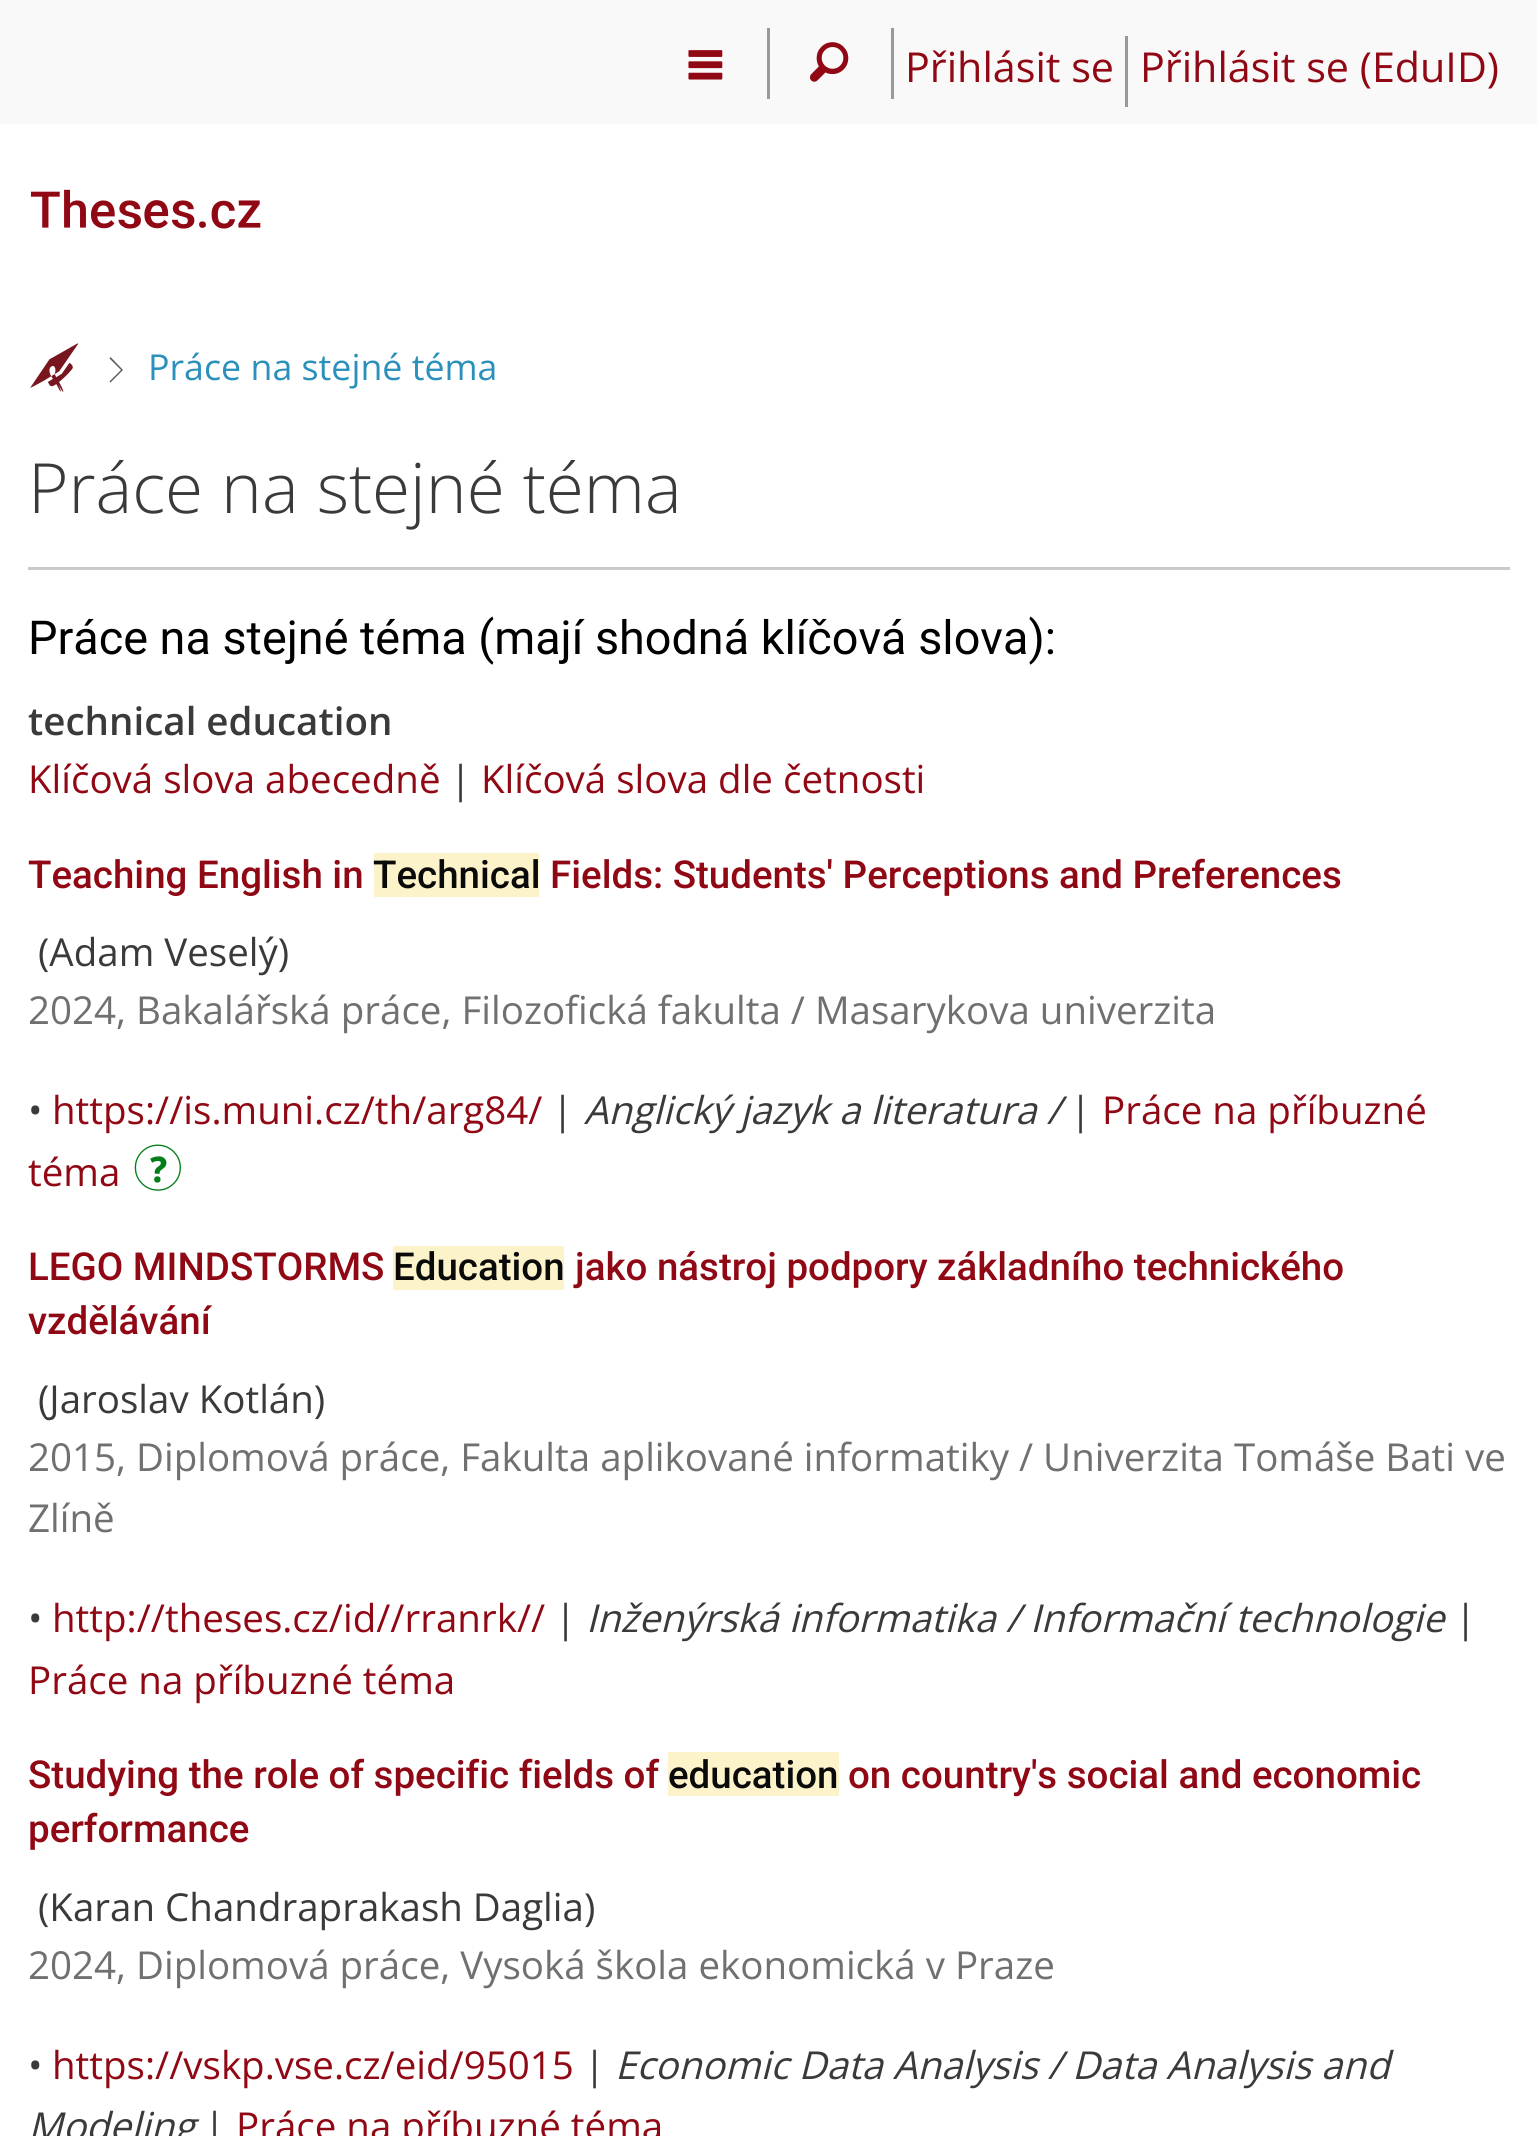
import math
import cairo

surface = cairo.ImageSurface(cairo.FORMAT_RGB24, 1537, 2136)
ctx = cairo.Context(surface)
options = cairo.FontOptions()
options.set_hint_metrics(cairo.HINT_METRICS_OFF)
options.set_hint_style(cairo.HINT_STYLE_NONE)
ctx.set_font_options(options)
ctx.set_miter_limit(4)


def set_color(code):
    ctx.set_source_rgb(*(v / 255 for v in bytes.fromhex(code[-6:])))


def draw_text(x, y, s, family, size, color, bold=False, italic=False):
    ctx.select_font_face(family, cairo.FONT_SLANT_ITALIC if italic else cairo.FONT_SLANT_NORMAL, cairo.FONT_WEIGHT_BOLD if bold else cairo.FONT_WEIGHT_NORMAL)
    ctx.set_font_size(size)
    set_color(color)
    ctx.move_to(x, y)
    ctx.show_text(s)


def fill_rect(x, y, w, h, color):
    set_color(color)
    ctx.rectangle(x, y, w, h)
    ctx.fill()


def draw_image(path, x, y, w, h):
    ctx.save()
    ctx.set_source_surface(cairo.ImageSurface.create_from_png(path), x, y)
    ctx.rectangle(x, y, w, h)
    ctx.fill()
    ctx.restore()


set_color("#ffffff")
ctx.paint()
fill_rect(0, 0, 1537, 124, "#f9f9f9")
fill_rect(767, 28, 3, 71, "#999999")
draw_image("assets/img1.png", 688, 50, 35, 30)
fill_rect(891, 28, 3, 71, "#999999")
draw_image("assets/img2.png", 810, 42, 39, 40)
fill_rect(1125, 36, 3, 71, "#999999")
draw_text(905, 82, "Přihlásit se", "Open Sans", 41.25, "#910815")
draw_text(1140, 82, "Přihlásit se (EduID)", "Open Sans", 41.25, "#910815")
draw_image("assets/img3.png", 30, 189, 231, 40)
draw_image("assets/img4.png", 30, 343, 48, 49)
set_color("#5a5a5a")
ctx.new_path()
ctx.move_to(110.5, 382.5)
ctx.line_to(109.5, 381.5)
ctx.line_to(121, 370)
ctx.line_to(109.5, 358.5)
ctx.line_to(110.5, 357)
ctx.line_to(123, 370)
ctx.close_path()
ctx.fill()
draw_text(148, 380, "Práce na stejné téma", "Open Sans", 35.75, "#2b90bc")
draw_text(28, 513, "Práce na stejné téma", "Open Sans Light", 69.25, "#3a3a3a")
fill_rect(28, 567, 1482, 3, "#cacaca")
draw_text(28, 654, "Práce na stejné téma (mají shodná klíčová slova):", "Roboto", 46.75, "#000000")
draw_text(28, 735, "technical education", "Open Sans SemiBold", 38.5, "#3a3a3a")
draw_text(28, 793, "Klíčová slova abecedně", "Open Sans", 38.5, "#910815")
draw_text(450, 793, "|", "Open Sans", 38.5, "#3a3a3a")
draw_text(481, 793, "Klíčová slova dle četnosti", "Open Sans", 38.5, "#910815")
draw_text(28, 888, "Teaching English in", "Roboto Medium", 38.5, "#910815")
fill_rect(374, 853, 165, 44, "#fcf3cb")
draw_text(373, 888, "Technical", "Roboto Medium", 38.5, "#0a0a0a")
draw_text(550, 888, "Fields: Students' Perceptions and Preferences", "Roboto Medium", 38.5, "#910815")
draw_text(38, 966, "(Adam Veselý)", "Open Sans", 38.5, "#3a3a3a")
draw_text(28, 1024, "2024, Bakalářská práce, Filozofická fakulta / Masarykova univerzita", "Open Sans", 38.5, "#707070")
draw_text(28, 1124, "•", "Open Sans", 38.5, "#3a3a3a")
draw_text(52, 1124, "https://is.muni.cz/th/arg84/", "Open Sans", 38.5, "#910815")
draw_text(552, 1124, "|", "Open Sans", 38.5, "#3a3a3a")
draw_text(584, 1124, "Anglický jazyk a literatura /", "Open Sans", 38.5, "#3a3a3a", italic=True)
draw_text(1070, 1124, "|", "Open Sans", 38.5, "#3a3a3a")
draw_text(1102, 1124, "Práce na příbuzné", "Open Sans", 38.5, "#910815")
draw_text(28, 1186, "téma", "Open Sans", 38.5, "#910815")
draw_image("assets/img5.png", 134, 1144, 47, 47)
draw_text(28, 1280, "LEGO MINDSTORMS", "Roboto Medium", 38.5, "#910815")
fill_rect(393, 1246, 171, 44, "#fcf3cb")
draw_text(393, 1280, "Education", "Roboto Medium", 38.5, "#0a0a0a")
draw_text(575, 1280, "jako nástroj podpory základního technického", "Roboto Medium", 38.5, "#910815")
draw_text(28, 1334, "vzdělávání", "Roboto Medium", 38.5, "#910815")
draw_text(38, 1413, "(Jaroslav Kotlán)", "Open Sans", 38.5, "#3a3a3a")
draw_text(28, 1471, "2015, Diplomová práce, Fakulta aplikované informatiky / Univerzita Tomáše Bati ve", "Open Sans", 38.5, "#707070")
draw_text(28, 1532, "Zlíně", "Open Sans", 38.5, "#707070")
draw_text(28, 1632, "•", "Open Sans", 38.5, "#3a3a3a")
draw_text(52, 1632, "http://theses.cz/id//rranrk//", "Open Sans", 38.5, "#910815")
draw_text(555, 1632, "|", "Open Sans", 38.5, "#3a3a3a")
draw_text(586, 1632, "Inženýrská informatika / Informační technologie", "Open Sans", 38.5, "#3a3a3a", italic=True)
draw_text(1455, 1632, "|", "Open Sans", 38.5, "#3a3a3a")
draw_text(28, 1694, "Práce na příbuzné téma", "Open Sans", 38.5, "#910815")
draw_text(28, 1788, "Studying the role of specific fields of", "Roboto Medium", 38.5, "#910815")
fill_rect(668, 1752, 171, 44, "#fcf3cb")
draw_text(668, 1788, "education", "Roboto Medium", 38.5, "#0a0a0a")
draw_text(848, 1788, "on country's social and economic", "Roboto Medium", 38.5, "#910815")
draw_text(28, 1842, "performance", "Roboto Medium", 38.5, "#910815")
draw_text(38, 1921, "(Karan Chandraprakash Daglia)", "Open Sans", 38.5, "#3a3a3a")
draw_text(28, 1979, "2024, Diplomová práce, Vysoká škola ekonomická v Praze", "Open Sans", 38.5, "#707070")
draw_text(28, 2079, "•", "Open Sans", 38.5, "#3a3a3a")
draw_text(52, 2079, "https://vskp.vse.cz/eid/95015", "Open Sans", 38.5, "#910815")
draw_text(584, 2079, "|", "Open Sans", 38.5, "#3a3a3a")
draw_text(615, 2079, "Economic Data Analysis / Data Analysis and", "Open Sans", 38.5, "#3a3a3a", italic=True)
draw_text(28, 2140, "Modeling", "Open Sans", 38.5, "#3a3a3a", italic=True)
draw_text(204, 2140, "|", "Open Sans", 38.5, "#3a3a3a")
draw_text(236, 2140, "Práce na příbuzné téma", "Open Sans", 38.5, "#910815")
surface.write_to_png("output.png")
